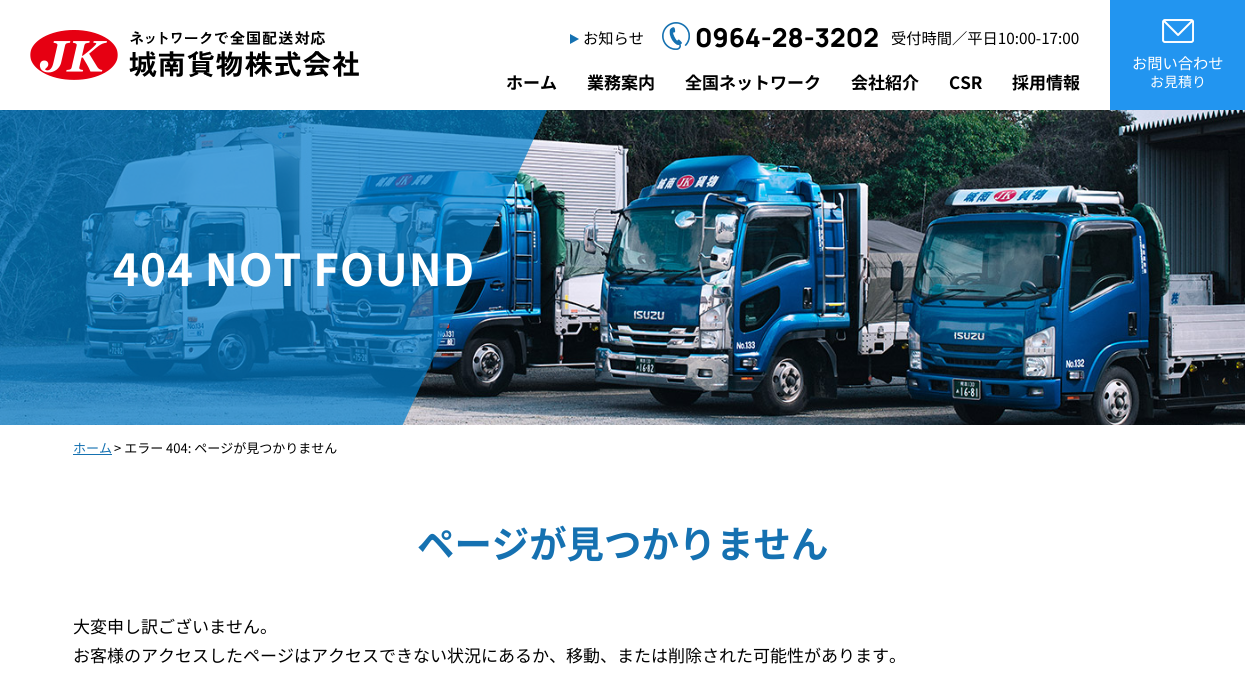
import math
import cairo

surface = cairo.ImageSurface(cairo.FORMAT_RGB24, 1245, 678)
ctx = cairo.Context(surface)
options = cairo.FontOptions()
options.set_hint_metrics(cairo.HINT_METRICS_OFF)
options.set_hint_style(cairo.HINT_STYLE_NONE)
ctx.set_font_options(options)
ctx.set_miter_limit(4)


def set_color(code):
    ctx.set_source_rgb(*(v / 255 for v in bytes.fromhex(code[-6:])))


def draw_text(x, y, s, family, size, color, bold=False, italic=False):
    ctx.select_font_face(family, cairo.FONT_SLANT_ITALIC if italic else cairo.FONT_SLANT_NORMAL, cairo.FONT_WEIGHT_BOLD if bold else cairo.FONT_WEIGHT_NORMAL)
    ctx.set_font_size(size)
    set_color(color)
    ctx.move_to(x, y)
    ctx.show_text(s)


def draw_spaced(x, y, s, letter, word):
    ctx.move_to(x, y)
    for ch in s:
        ctx.show_text(ch)
        ctx.rel_move_to(letter + word * (ch == ' '), 0)


def fill_rect(x, y, w, h, color):
    set_color(color)
    ctx.rectangle(x, y, w, h)
    ctx.fill()


def draw_image(path, x, y, w, h):
    ctx.save()
    ctx.set_source_surface(cairo.ImageSurface.create_from_png(path), x, y)
    ctx.rectangle(x, y, w, h)
    ctx.fill()
    ctx.restore()


set_color("#ffffff")
ctx.paint()
draw_image("assets/img1.png", 30, 30, 329, 50)
set_color("#1571b1")
ctx.new_path()
ctx.move_to(570, 44)
ctx.line_to(570, 34)
ctx.line_to(579, 39)
ctx.close_path()
ctx.fill()
draw_text(583, 44, "お知らせ", "Noto Sans JP", 15.25, "#000000")
draw_image("assets/img2.png", 662, 22, 28, 28)
draw_text(695, 47, "0964-28-3202", "Manrope ExtraLight", 26, "#000000")
draw_text(891, 44, "受付時間／平日10:00-17:00", "Noto Sans JP", 15.25, "#000000")
draw_text(506, 89, "ホーム", "Noto Sans JP", 17, "#000000", bold=True)
draw_text(587, 89, "業務案内", "Noto Sans JP", 17, "#000000", bold=True)
draw_text(685, 89, "全国ネットワーク", "Noto Sans JP", 17, "#000000", bold=True)
draw_text(851, 89, "会社紹介", "Noto Sans JP", 17, "#000000", bold=True)
draw_text(949, 89, "CSR", "Noto Sans JP", 17, "#000000", bold=True)
draw_text(1012, 89, "採用情報", "Noto Sans JP", 17, "#000000", bold=True)
fill_rect(1110, 0, 135, 110, "#2295f0")
draw_image("assets/img3.png", 1162, 19, 32, 24)
draw_text(1132, 69, "お問い合わせ", "Noto Sans JP", 15.25, "#ffffff")
draw_text(1150, 87, "お見積り", "Noto Sans JP", 14, "#ffffff")
draw_image("assets/img4.png", 0, 110, 1245, 315)
ctx.set_source_rgba(0.008, 0.502, 0.8, 0.7)
ctx.rectangle(0, 110, 398, 315)
ctx.fill()
ctx.save()
ctx.rectangle(0, 110, 1245, 315)
ctx.clip()
ctx.new_path()
ctx.move_to(398, 110)
ctx.line_to(547, 110)
ctx.line_to(398, 435)
ctx.close_path()
ctx.fill()
ctx.restore()
ctx.select_font_face("Noto Sans JP", cairo.FONT_SLANT_NORMAL, cairo.FONT_WEIGHT_BOLD)
ctx.set_font_size(44)
set_color("#ffffff")
draw_spaced(113, 286, "404 NOT FOUND", 1, 0)
draw_text(73, 453, "ホーム", "Noto Sans JP", 13, "#1571b1")
fill_rect(73, 454, 39, 1, "#1571b1")
draw_text(114, 453, "> エラー 404: ページが見つかりません", "Noto Sans JP", 13, "#000000")
draw_text(417, 558, "ページが見つかりません", "Noto Sans JP", 37.4, "#1571b1", bold=True)
draw_text(73, 633, "大変申し訳ございません。", "Noto Sans JP", 17, "#000000")
draw_text(73, 662, "お客様のアクセスしたページはアクセスできない状況にあるか、移動、または削除された可能性があります。", "Noto Sans JP", 17, "#000000")
surface.write_to_png("output.png")
